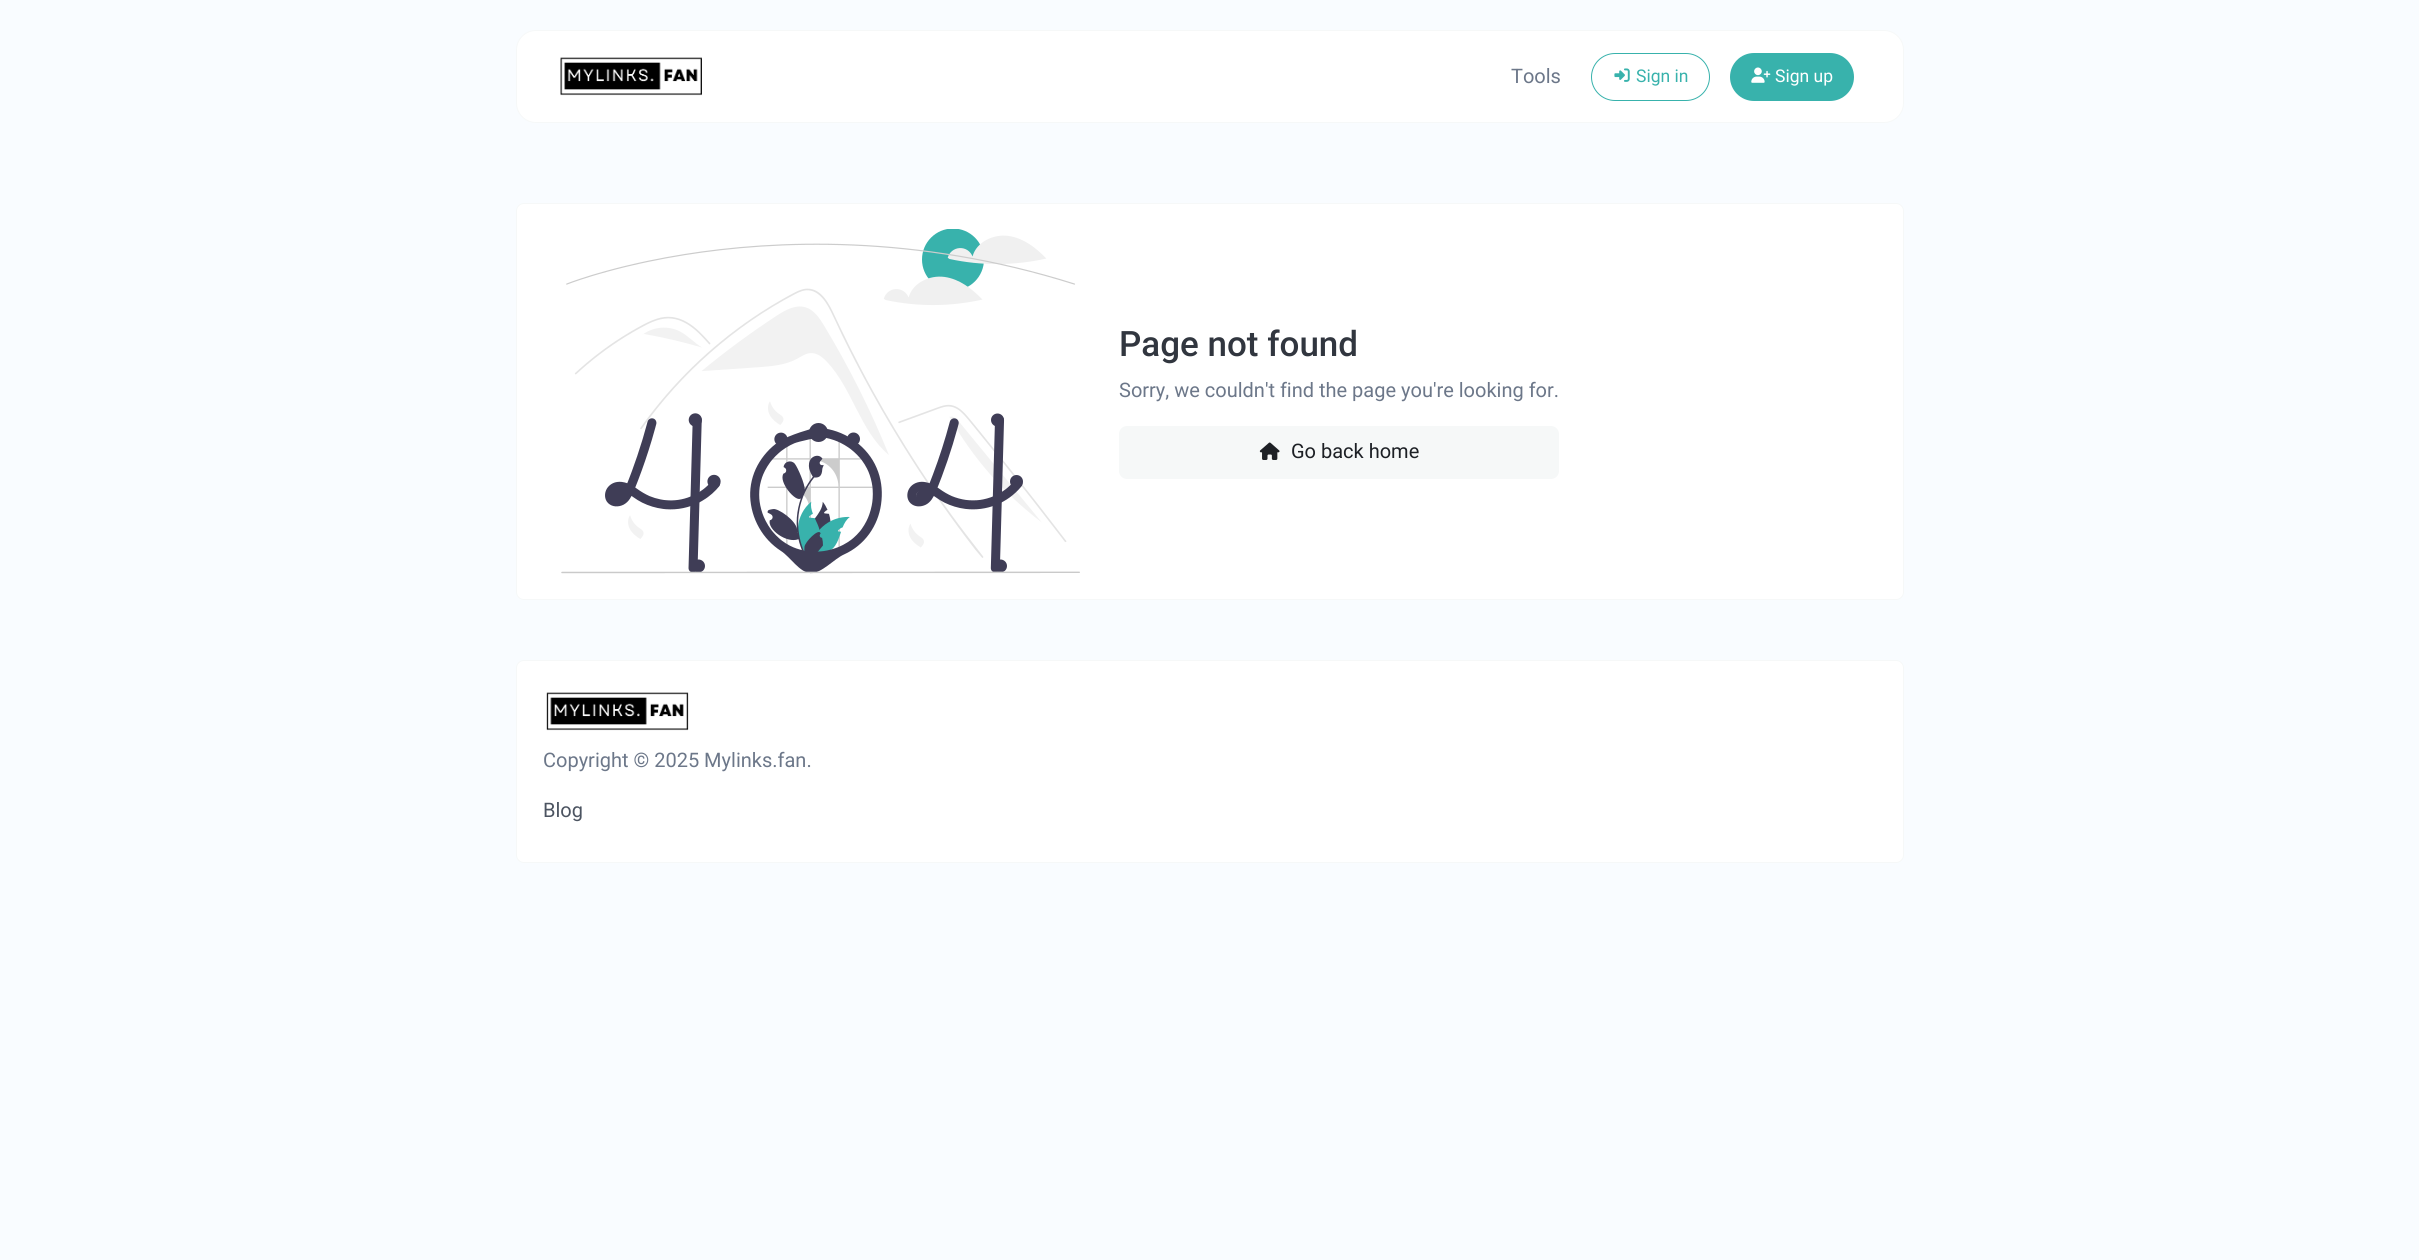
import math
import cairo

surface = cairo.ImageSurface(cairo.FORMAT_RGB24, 2419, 1260)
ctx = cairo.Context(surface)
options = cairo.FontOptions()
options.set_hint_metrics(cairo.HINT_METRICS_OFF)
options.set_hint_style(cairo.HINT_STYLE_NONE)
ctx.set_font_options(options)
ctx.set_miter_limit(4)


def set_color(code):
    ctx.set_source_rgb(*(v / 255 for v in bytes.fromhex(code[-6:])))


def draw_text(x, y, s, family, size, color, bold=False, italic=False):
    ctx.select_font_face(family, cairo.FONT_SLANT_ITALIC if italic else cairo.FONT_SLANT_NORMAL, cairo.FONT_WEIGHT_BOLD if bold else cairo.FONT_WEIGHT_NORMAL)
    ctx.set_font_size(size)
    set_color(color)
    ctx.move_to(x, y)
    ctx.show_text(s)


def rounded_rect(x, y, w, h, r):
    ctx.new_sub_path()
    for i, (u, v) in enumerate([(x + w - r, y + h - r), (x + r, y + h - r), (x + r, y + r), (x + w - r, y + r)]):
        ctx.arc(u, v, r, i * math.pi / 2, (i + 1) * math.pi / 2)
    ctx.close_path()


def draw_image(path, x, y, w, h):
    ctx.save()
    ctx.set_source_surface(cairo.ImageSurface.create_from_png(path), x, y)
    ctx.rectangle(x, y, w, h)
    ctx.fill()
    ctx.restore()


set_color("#f9fcff")
ctx.paint()
set_color("#ffffff")
rounded_rect(516.5, 30.5, 1387, 92, 19.5)
ctx.fill_preserve()
set_color("#f6f8f8")
ctx.set_line_width(1)
ctx.stroke()
draw_image("assets/img1.png", 560, 57, 142, 39)
draw_text(1511, 83, "Tools", "Roboto", 20, "#6c7789")
rounded_rect(1591.5, 53.5, 118, 47, 23.5)
set_color("#38b2ac")
ctx.stroke()
draw_image("assets/img2.png", 1614, 68, 16, 14)
draw_text(1636, 82, "Sign in", "Roboto", 17.5, "#38b2ac")
rounded_rect(1730, 53, 124, 48, 24)
ctx.fill()
draw_image("assets/img3.png", 1751, 67, 20, 16)
draw_text(1775, 82, "Sign up", "Roboto", 17.5, "#ffffff")
rounded_rect(516.5, 203.5, 1387, 396, 7.5)
ctx.fill_preserve()
set_color("#f6f8f8")
ctx.stroke()
draw_image("assets/img4.png", 561, 229, 519, 345)
draw_text(1119, 356, "Page not found", "Roboto Medium", 35, "#31363f")
draw_text(1119, 397, "Sorry, we couldn't find the page you're looking for.", "Roboto", 20, "#6c7789")
set_color("#f6f8f8")
rounded_rect(1119, 426, 440, 53, 8)
ctx.fill()
draw_image("assets/img5.png", 1259, 442, 21, 18)
draw_text(1291, 458, "Go back home", "Roboto", 20, "#1d2025")
set_color("#ffffff")
rounded_rect(516.5, 660.5, 1387, 202, 7.5)
ctx.fill_preserve()
set_color("#f6f8f8")
ctx.stroke()
draw_image("assets/img6.png", 546, 692, 143, 39)
draw_text(543, 767, "Copyright © 2025 Mylinks.fan.", "Roboto", 20, "#6c7789")
draw_text(543, 817, "Blog", "Roboto", 20, "#4c5461")
surface.write_to_png("output.png")
